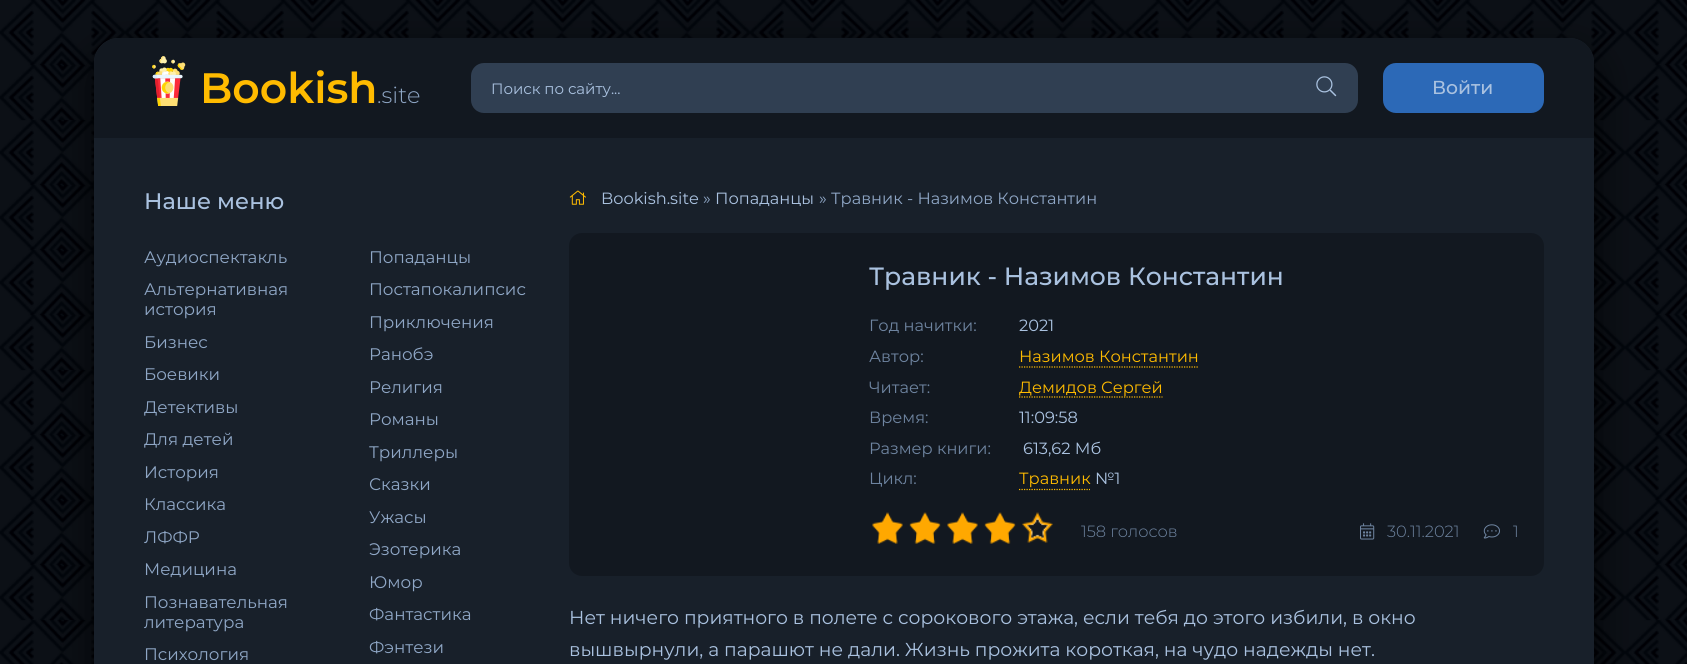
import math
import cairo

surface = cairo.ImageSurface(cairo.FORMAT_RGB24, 1687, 664)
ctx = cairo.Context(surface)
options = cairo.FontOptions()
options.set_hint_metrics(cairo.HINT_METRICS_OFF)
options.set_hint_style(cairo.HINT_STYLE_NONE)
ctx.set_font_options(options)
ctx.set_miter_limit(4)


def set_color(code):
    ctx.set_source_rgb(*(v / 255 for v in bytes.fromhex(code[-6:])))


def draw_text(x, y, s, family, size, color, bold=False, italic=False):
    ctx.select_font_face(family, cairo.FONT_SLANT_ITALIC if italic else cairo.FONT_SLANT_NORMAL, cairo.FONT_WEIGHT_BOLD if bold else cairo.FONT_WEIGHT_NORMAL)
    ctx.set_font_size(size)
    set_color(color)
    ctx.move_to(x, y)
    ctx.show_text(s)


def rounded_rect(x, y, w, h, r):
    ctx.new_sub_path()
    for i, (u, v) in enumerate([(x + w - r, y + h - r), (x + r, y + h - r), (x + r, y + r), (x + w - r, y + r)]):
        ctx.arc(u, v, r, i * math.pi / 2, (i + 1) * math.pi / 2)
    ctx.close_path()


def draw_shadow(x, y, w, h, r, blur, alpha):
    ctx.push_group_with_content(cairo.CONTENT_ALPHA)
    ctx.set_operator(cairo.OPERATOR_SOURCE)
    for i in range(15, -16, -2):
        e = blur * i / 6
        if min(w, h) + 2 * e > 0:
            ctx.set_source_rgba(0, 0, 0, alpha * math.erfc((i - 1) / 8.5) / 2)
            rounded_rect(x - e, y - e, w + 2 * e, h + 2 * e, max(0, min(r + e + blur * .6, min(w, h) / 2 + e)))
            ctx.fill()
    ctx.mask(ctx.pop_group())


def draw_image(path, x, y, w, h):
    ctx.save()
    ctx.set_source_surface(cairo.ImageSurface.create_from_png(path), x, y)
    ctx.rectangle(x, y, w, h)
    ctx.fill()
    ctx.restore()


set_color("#ffffff")
ctx.paint()
draw_image("assets/img1.png", 0, 0, 1687, 664)
set_color("#000000")
draw_shadow(94, 56, 1500, 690, 25, 19, 0.8)
set_color("#18202a")
rounded_rect(94, 38, 1500, 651, 25)
ctx.fill()
set_color("#121820")
ctx.new_path()
ctx.move_to(119, 38)
ctx.line_to(1569, 38)
ctx.curve_to(1583, 38, 1594, 49, 1594, 63)
ctx.line_to(1594, 138)
ctx.line_to(94, 138)
ctx.line_to(94, 63)
ctx.curve_to(94, 49, 105, 38, 119, 38)
ctx.close_path()
ctx.fill()
draw_image("assets/img2.png", 152, 56, 34, 50)
draw_text(200, 103, "Bookish", "Montserrat SemiBold", 42.5, "#ffbb00")
draw_text(377, 103, ".site", "Montserrat Light", 22.5, "#8fa7c6")
set_color("#303f52")
rounded_rect(471, 63, 887, 50, 13)
ctx.fill()
draw_text(491, 94, "Поиск по сайту...", "Montserrat", 15, "#aac2e0")
draw_image("assets/img3.png", 1316, 76, 21, 21)
set_color("#2c69b7")
rounded_rect(1383, 63, 161, 50, 13)
ctx.fill()
draw_text(1432, 94, "Войти", "Montserrat Medium", 18.75, "#aac2e0")
draw_text(144, 209, "Наше меню", "Montserrat Medium", 22.5, "#aac2e0")
draw_text(144, 263, "Аудиоспектакль", "Montserrat", 16.75, "#8fa7c6")
draw_text(144, 295, "Альтернативная", "Montserrat", 16.75, "#8fa7c6")
draw_text(144, 315, "история", "Montserrat", 16.75, "#8fa7c6")
draw_text(144, 348, "Бизнес", "Montserrat", 16.75, "#8fa7c6")
draw_text(144, 380, "Боевики", "Montserrat", 16.75, "#8fa7c6")
draw_text(144, 413, "Детективы", "Montserrat", 16.75, "#8fa7c6")
draw_text(144, 445, "Для детей", "Montserrat", 16.75, "#8fa7c6")
draw_text(144, 478, "История", "Montserrat", 16.75, "#8fa7c6")
draw_text(144, 510, "Классика", "Montserrat", 16.75, "#8fa7c6")
draw_text(144, 543, "ЛФФР", "Montserrat", 16.75, "#8fa7c6")
draw_text(144, 575, "Медицина", "Montserrat", 16.75, "#8fa7c6")
draw_text(144, 608, "Познавательная", "Montserrat", 16.75, "#8fa7c6")
draw_text(144, 628, "литература", "Montserrat", 16.75, "#8fa7c6")
draw_text(144, 660, "Психология", "Montserrat", 16.75, "#8fa7c6")
draw_text(369, 263, "Попаданцы", "Montserrat", 16.75, "#8fa7c6")
draw_text(369, 295, "Постапокалипсис", "Montserrat", 16.75, "#8fa7c6")
draw_text(369, 328, "Приключения", "Montserrat", 16.75, "#8fa7c6")
draw_text(369, 360, "Ранобэ", "Montserrat", 16.75, "#8fa7c6")
draw_text(369, 393, "Религия", "Montserrat", 16.75, "#8fa7c6")
draw_text(369, 425, "Романы", "Montserrat", 16.75, "#8fa7c6")
draw_text(369, 458, "Триллеры", "Montserrat", 16.75, "#8fa7c6")
draw_text(369, 490, "Сказки", "Montserrat", 16.75, "#8fa7c6")
draw_text(369, 523, "Ужасы", "Montserrat", 16.75, "#8fa7c6")
draw_text(369, 555, "Эзотерика", "Montserrat", 16.75, "#8fa7c6")
draw_text(369, 588, "Юмор", "Montserrat", 16.75, "#8fa7c6")
draw_text(369, 620, "Фантастика", "Montserrat", 16.75, "#8fa7c6")
draw_text(369, 653, "Фэнтези", "Montserrat", 16.75, "#8fa7c6")
draw_image("assets/img4.png", 569, 190, 17, 15)
draw_text(601, 204, "Bookish.site", "Montserrat", 16.25, "#aac2e0")
draw_text(703, 204, "»", "Montserrat", 16.25, "#8fa7c6")
draw_text(715, 204, "Попаданцы", "Montserrat", 16.25, "#aac2e0")
draw_text(819, 204, "» Травник - Назимов Константин", "Montserrat", 16.25, "#8fa7c6")
set_color("#121820")
rounded_rect(569, 233, 975, 343, 13)
ctx.fill()
draw_text(869, 285, "Травник - Назимов Константин", "Montserrat Medium", 25, "#aac2e0")
draw_text(869, 331, "Год начитки:", "Montserrat", 16.25, "#6e84a0")
draw_text(1019, 331, "2021", "Montserrat", 16.25, "#aac2e0")
draw_text(869, 362, "Автор:", "Montserrat", 16.25, "#6e84a0")
draw_text(1019, 362, "Назимов Константин", "Montserrat", 16.25, "#ffbb00")
ctx.new_path()
ctx.move_to(1019, 367)
ctx.line_to(1199, 367)
ctx.set_line_width(1.2)
ctx.set_dash([1.25, 1.25])
ctx.stroke()
draw_text(869, 393, "Читает:", "Montserrat", 16.25, "#6e84a0")
ctx.new_path()
ctx.move_to(1019, 397)
ctx.line_to(1162.5, 397)
set_color("#ffbb00")
ctx.stroke()
draw_text(1019, 393, "Демидов Сергей", "Montserrat", 16.25, "#ffbb00")
draw_text(869, 423, "Время:", "Montserrat", 16.25, "#6e84a0")
draw_text(1019, 423, "11:09:58", "Montserrat", 16.25, "#aac2e0")
draw_text(869, 454, "Размер книги:", "Montserrat", 16.25, "#6e84a0")
draw_text(1023, 454, "613,62 Мб", "Montserrat", 16.25, "#aac2e0")
draw_text(869, 484, "Цикл:", "Montserrat", 16.25, "#6e84a0")
draw_text(1019, 484, "Травник", "Montserrat", 16.25, "#ffbb00")
ctx.new_path()
ctx.move_to(1019, 489.5)
ctx.line_to(1090, 489.5)
ctx.stroke()
draw_text(1095, 484, "№1", "Montserrat", 16.25, "#aac2e0")
draw_image("assets/img5.png", 872, 512, 181, 31)
draw_image("assets/img6.png", 872, 513, 144, 31)
draw_text(1081, 537, "158 голосов", "Montserrat Light", 16.25, "#6e84a0")
draw_image("assets/img7.png", 1360, 523, 15, 17)
draw_text(1387, 537, "30.11.2021", "Montserrat Light", 16.25, "#6e84a0")
draw_image("assets/img8.png", 1483, 524, 17, 15)
draw_text(1513, 537, "1", "Montserrat Light", 16.25, "#6e84a0")
draw_text(569, 624, "Нет ничего приятного в полете с сорокового этажа, если тебя до этого избили, в окно", "Montserrat", 18.75, "#aac2e0")
draw_text(569, 656, "вышвырнули, а парашют не дали. Жизнь прожита короткая, на чудо надежды нет.", "Montserrat", 18.75, "#aac2e0")
surface.write_to_png("output.png")
